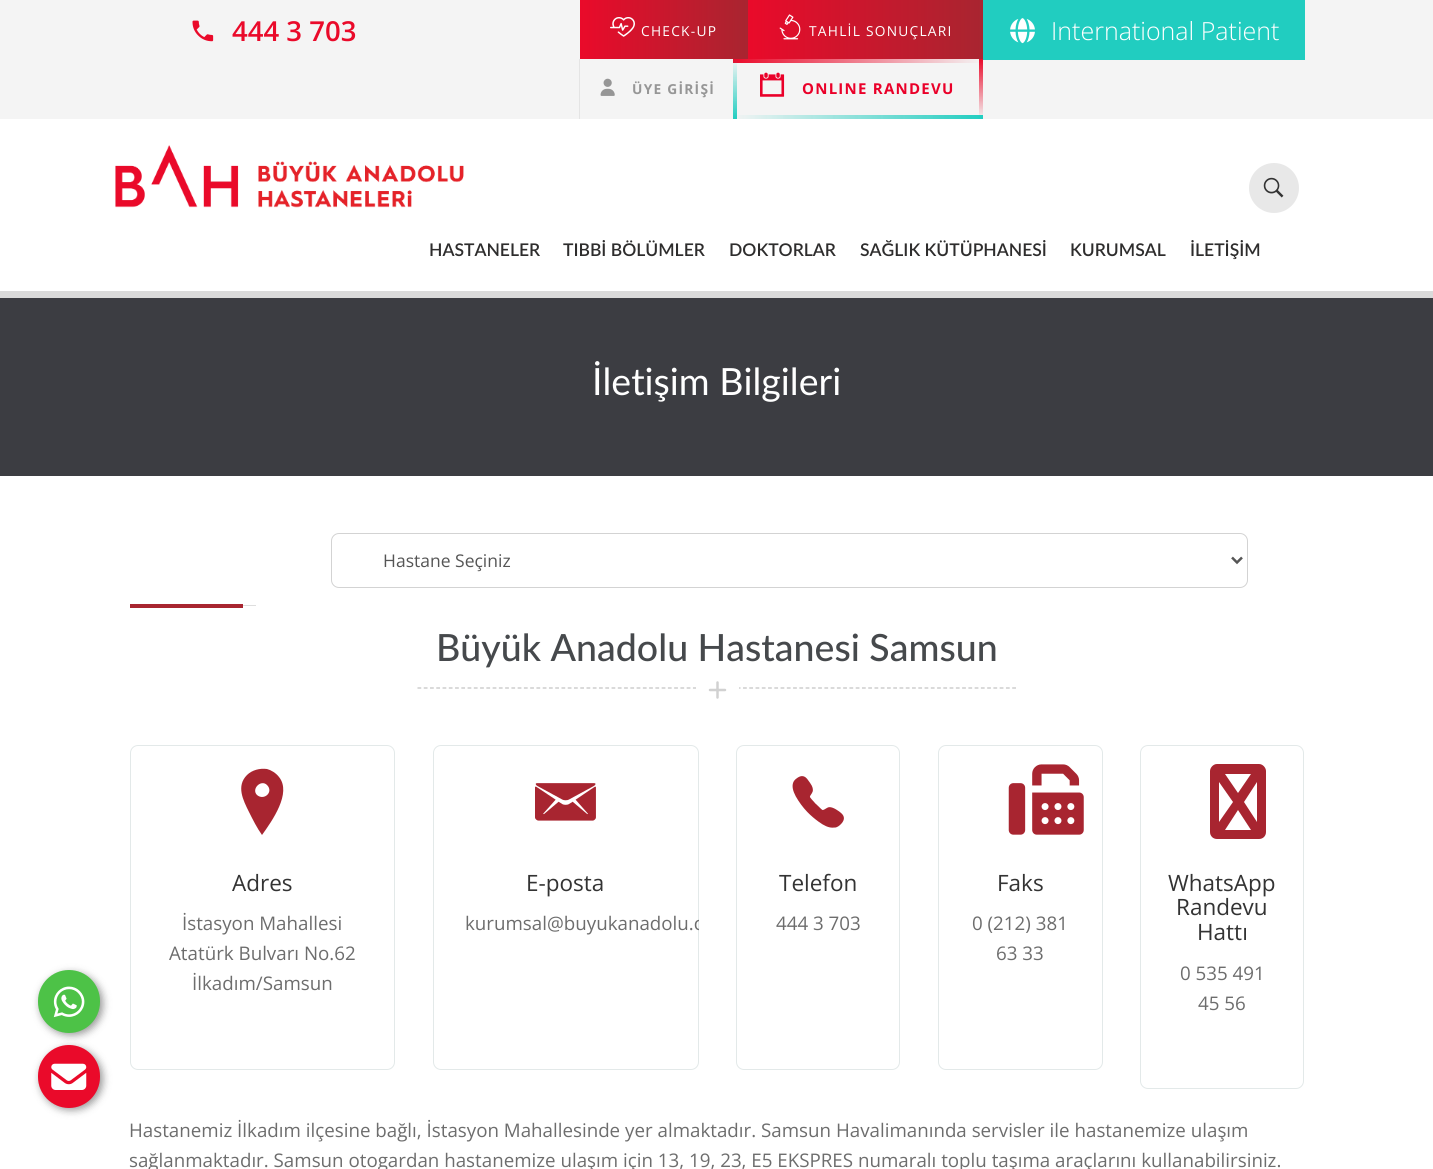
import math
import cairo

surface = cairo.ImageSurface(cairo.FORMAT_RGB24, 1433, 1169)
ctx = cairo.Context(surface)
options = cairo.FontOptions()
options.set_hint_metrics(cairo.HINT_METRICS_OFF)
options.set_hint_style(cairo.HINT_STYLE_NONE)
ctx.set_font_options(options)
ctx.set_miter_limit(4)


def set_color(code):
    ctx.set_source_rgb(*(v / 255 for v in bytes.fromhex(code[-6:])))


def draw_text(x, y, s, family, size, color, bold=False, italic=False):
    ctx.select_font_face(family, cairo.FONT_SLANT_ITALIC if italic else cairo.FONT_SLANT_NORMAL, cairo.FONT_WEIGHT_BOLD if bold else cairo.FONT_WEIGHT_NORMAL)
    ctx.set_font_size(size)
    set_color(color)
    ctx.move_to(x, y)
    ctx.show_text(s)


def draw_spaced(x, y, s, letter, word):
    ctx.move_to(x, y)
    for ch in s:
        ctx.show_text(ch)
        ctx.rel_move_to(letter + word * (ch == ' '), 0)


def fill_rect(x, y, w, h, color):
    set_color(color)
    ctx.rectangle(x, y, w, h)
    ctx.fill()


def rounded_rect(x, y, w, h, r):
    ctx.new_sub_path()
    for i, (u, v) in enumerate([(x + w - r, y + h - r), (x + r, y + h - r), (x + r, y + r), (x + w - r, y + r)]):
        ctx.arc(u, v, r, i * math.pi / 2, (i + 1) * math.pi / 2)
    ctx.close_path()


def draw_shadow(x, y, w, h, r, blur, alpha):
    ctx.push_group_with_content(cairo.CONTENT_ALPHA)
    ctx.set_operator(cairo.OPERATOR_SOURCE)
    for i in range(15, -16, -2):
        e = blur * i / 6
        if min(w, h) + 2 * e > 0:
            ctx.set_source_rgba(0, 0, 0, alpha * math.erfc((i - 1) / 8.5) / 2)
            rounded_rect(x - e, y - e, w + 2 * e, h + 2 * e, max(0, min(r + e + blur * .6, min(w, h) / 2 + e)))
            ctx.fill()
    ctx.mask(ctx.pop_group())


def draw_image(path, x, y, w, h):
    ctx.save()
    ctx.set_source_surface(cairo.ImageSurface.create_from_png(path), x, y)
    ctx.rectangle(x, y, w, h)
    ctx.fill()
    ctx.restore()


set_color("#ffffff")
ctx.paint()
fill_rect(0, 0, 1433, 119, "#f4f4f4")
draw_image("assets/img1.png", 192, 20, 22, 22)
draw_text(232, 41, "444 3 703", "Open Sans SemiBold", 27.5, "#ea0a2a")
gradient = cairo.LinearGradient(580, 29, 748, 29)
gradient.add_color_stop_rgba(0, 0.918, 0.039, 0.165, 1)
gradient.add_color_stop_rgba(1, 0.659, 0.145, 0.188, 1)
ctx.set_source(gradient)
ctx.rectangle(580, 0, 168, 59)
ctx.fill()
draw_image("assets/img2.png", 610, 17, 25, 20)
ctx.select_font_face("Open Sans")
ctx.set_font_size(13.75)
set_color("#ffffff")
draw_spaced(641, 36, "CHECK-UP", 1.25, 0)
gradient = cairo.LinearGradient(748, 29, 983, 29)
gradient.add_color_stop_rgba(0, 0.918, 0.039, 0.165, 1)
gradient.add_color_stop_rgba(1, 0.659, 0.145, 0.188, 1)
ctx.set_source(gradient)
ctx.rectangle(748, 0, 235, 59)
ctx.fill()
draw_image("assets/img3.png", 779, 14, 22, 26)
set_color("#ffffff")
draw_spaced(809, 36, "TAHLİL SONUÇLARI", 1.25, 0)
fill_rect(983, 0, 322, 60, "#21cdc0")
draw_image("assets/img4.png", 1010, 18, 25, 26)
draw_text(1051, 40, "International Patient", "Open Sans Light", 25, "#ffffff")
fill_rect(579, 59, 1, 60, "#e4e4e4")
draw_image("assets/img5.png", 600, 78, 15, 18)
ctx.select_font_face("Open Sans", cairo.FONT_SLANT_NORMAL, cairo.FONT_WEIGHT_BOLD)
ctx.set_font_size(13.75)
set_color("#969696")
draw_spaced(632, 94, "ÜYE GİRİŞİ", 1.25, 0)
gradient = cairo.LinearGradient(983, 61, 733, 61)
gradient.add_color_stop_rgba(0, 0.957, 0.957, 0.957, 1)
gradient.add_color_stop_rgba(1, 0.918, 0.039, 0.165, 1)
ctx.set_source(gradient)
ctx.rectangle(733, 59, 250, 4)
ctx.fill()
gradient = cairo.LinearGradient(981, 119, 981, 59)
gradient.add_color_stop_rgba(0, 0.918, 0.039, 0.165, 0)
gradient.add_color_stop_rgba(1, 0.918, 0.039, 0.165, 1)
ctx.set_source(gradient)
ctx.rectangle(979, 59, 4, 60)
ctx.fill()
gradient = cairo.LinearGradient(733, 117, 983, 117)
gradient.add_color_stop_rgba(0, 0.129, 0.804, 0.753, 0)
gradient.add_color_stop_rgba(1, 0.129, 0.804, 0.753, 1)
ctx.set_source(gradient)
ctx.rectangle(733, 115, 250, 4)
ctx.fill()
gradient = cairo.LinearGradient(734, 59, 734, 119)
gradient.add_color_stop_rgba(0, 0.129, 0.804, 0.753, 0)
gradient.add_color_stop_rgba(1, 0.129, 0.804, 0.753, 1)
ctx.set_source(gradient)
ctx.rectangle(733, 59, 4, 60)
ctx.fill()
draw_image("assets/img6.png", 760, 72, 25, 25)
ctx.set_font_size(15)
set_color("#ea0029")
draw_spaced(802, 94, "ONLINE RANDEVU", 1.25, 0)
fill_rect(0, 291, 1433, 7, "#dadada")
draw_image("assets/img7.png", 115, 145, 349, 63)
set_color("#e8e8e8")
ctx.arc(1274, 188, 25, 0, 2 * math.pi)
ctx.fill()
draw_image("assets/img8.png", 1263, 177, 21, 21)
draw_text(429, 256, "HASTANELER", "Lato SemiBold", 17.5, "#2e2d2d")
draw_text(563, 256, "TIBBİ BÖLÜMLER", "Lato SemiBold", 17.5, "#2e2d2d")
draw_text(729, 256, "DOKTORLAR", "Lato SemiBold", 17.5, "#2e2d2d")
draw_text(860, 256, "SAĞLIK KÜTÜPHANESİ", "Lato SemiBold", 17.5, "#2e2d2d")
draw_text(1070, 256, "KURUMSAL", "Lato SemiBold", 17.5, "#2e2d2d")
draw_text(1190, 256, "İLETİŞİM", "Lato SemiBold", 17.5, "#2e2d2d")
fill_rect(0, 298, 1433, 178, "#3c3d42")
draw_text(592, 395, "İletişim Bilgileri", "Lato", 37.5, "#ffffff")
rounded_rect(331.5, 533.5, 916, 54, 7.5)
set_color("#d3d3d3")
ctx.set_line_width(1)
ctx.stroke()
ctx.new_path()
ctx.move_to(1232, 557.5)
ctx.line_to(1237, 562.5)
ctx.line_to(1242, 557.5)
set_color("#555555")
ctx.set_line_width(2.5)
ctx.stroke()
draw_text(383, 567, "Hastane Seçiniz", "Open Sans", 17.5, "#555555")
fill_rect(243, 605, 13, 1, "#dedede")
fill_rect(130, 604, 113, 4, "#a82530")
ctx.new_path()
ctx.move_to(417.5, 688)
ctx.line_to(1016, 688)
set_color("#c1c1c1")
ctx.set_line_width(1.2)
ctx.set_dash([3.75, 2.51])
ctx.stroke()
draw_text(436, 661, "Büyük Anadolu Hastanesi Samsun", "Lato Medium", 37.5, "#46494c")
fill_rect(696, 687, 43, 2, "#ffffff")
draw_image("assets/img9.png", 708, 681, 19, 18)
set_color("#000000")
draw_shadow(40, 1048, 63, 62, 31, 4, 0.4)
set_color("#ea0a2a")
rounded_rect(38, 1045, 62, 63, 31)
ctx.fill()
set_color("#000000")
draw_shadow(40, 973, 63, 62, 31, 4, 0.4)
set_color("#4dc247")
rounded_rect(38, 970, 62, 63, 31)
ctx.fill()
draw_image("assets/img10.png", 53, 986, 32, 32)
draw_image("assets/img11.png", 51, 1063, 36, 27)
rounded_rect(130.5, 745.5, 264, 324, 7.5)
set_color("#e3e9e9")
ctx.set_line_width(1)
ctx.set_dash([])
ctx.stroke()
set_color("#a82530")
ctx.new_path()
ctx.move_to(247, 775)
ctx.curve_to(252, 770, 260, 768, 267, 769)
ctx.curve_to(271, 770, 276, 773, 279, 777)
ctx.curve_to(292, 793, 272, 821, 262, 835)
ctx.curve_to(257, 828, 253, 820, 249, 812)
ctx.curve_to(243, 800, 236, 786, 247, 775)
ctx.close_path()
ctx.move_to(257, 795)
ctx.curve_to(264, 801, 274, 792, 267, 785)
ctx.curve_to(261, 779, 251, 789, 257, 795)
ctx.close_path()
ctx.fill()
draw_text(232, 891, "Adres", "Open Sans", 22.5, "#333333")
draw_text(182, 930, "İstasyon Mahallesi", "Open Sans", 18.75, "#6d6d6d")
draw_text(169, 960, "Atatürk Bulvarı No.62", "Open Sans", 18.75, "#6d6d6d")
draw_text(192, 990, "İlkadım/Samsun", "Open Sans", 18.75, "#6d6d6d")
rounded_rect(433.5, 745.5, 265, 324, 7.5)
set_color("#e3e9e9")
ctx.stroke()
draw_image("assets/img12.png", 535, 783, 61, 38)
draw_text(526, 891, "E-posta", "Open Sans", 22.5, "#333333")
ctx.save()
ctx.rectangle(433, 745, 266, 325)
ctx.clip()
draw_text(465, 930, "kurumsal@buyukanadolu.c", "Open Sans", 18.75, "#6d6d6d")
ctx.restore()
rounded_rect(736.5, 745.5, 163, 324, 7.5)
set_color("#e3e9e9")
ctx.stroke()
draw_image("assets/img13.png", 792, 776, 52, 52)
draw_text(779, 891, "Telefon", "Open Sans", 22.5, "#333333")
draw_text(776, 930, "444 3 703", "Open Sans", 18.75, "#6d6d6d")
rounded_rect(938.5, 745.5, 164, 324, 7.5)
set_color("#e3e9e9")
ctx.stroke()
draw_image("assets/img14.png", 1008, 764, 76, 71)
draw_text(997, 891, "Faks", "Open Sans", 22.5, "#333333")
draw_text(972, 930, "0 (212) 381", "Open Sans", 18.75, "#6d6d6d")
draw_text(996, 960, "63 33", "Open Sans", 18.75, "#6d6d6d")
rounded_rect(1140.5, 745.5, 163, 343, 7.5)
set_color("#e3e9e9")
ctx.stroke()
set_color("#a82530")
ctx.new_path()
ctx.move_to(1219, 822)
ctx.line_to(1233, 802)
ctx.line_to(1219, 782)
ctx.close_path()
ctx.move_to(1225, 830)
ctx.line_to(1251, 830)
ctx.line_to(1238, 810)
ctx.close_path()
ctx.move_to(1244, 802)
ctx.line_to(1257, 822)
ctx.line_to(1257, 782)
ctx.close_path()
ctx.move_to(1251, 774)
ctx.line_to(1225, 774)
ctx.line_to(1238, 793)
ctx.close_path()
ctx.move_to(1210, 771)
ctx.curve_to(1210, 768, 1213, 764, 1217, 764)
ctx.line_to(1259, 764)
ctx.curve_to(1263, 764, 1266, 768, 1266, 771)
ctx.line_to(1266, 832)
ctx.curve_to(1266, 836, 1263, 839, 1259, 839)
ctx.line_to(1217, 839)
ctx.curve_to(1213, 839, 1210, 836, 1210, 832)
ctx.close_path()
ctx.fill()
draw_text(1168, 891, "WhatsApp", "Open Sans", 22.5, "#333333")
draw_text(1176, 915, "Randevu", "Open Sans", 22.5, "#333333")
draw_text(1197, 940, "Hattı", "Open Sans", 22.5, "#333333")
draw_text(1180, 980, "0 535 491", "Open Sans", 18.75, "#6d6d6d")
draw_text(1198, 1010, "45 56", "Open Sans", 18.75, "#6d6d6d")
draw_text(129, 1137, "Hastanemiz İlkadım ilçesine bağlı, İstasyon Mahallesinde yer almaktadır. Samsun Havalimanında servisler ile hastanemize ulaşım", "Open Sans", 18.75, "#6d6d6d")
draw_text(129, 1167, "sağlanmaktadır. Samsun otogardan hastanemize ulaşım için 13, 19, 23, E5 EKSPRES numaralı toplu taşıma araçlarını kullanabilirsiniz.", "Open Sans", 18.75, "#6d6d6d")
surface.write_to_png("output.png")
